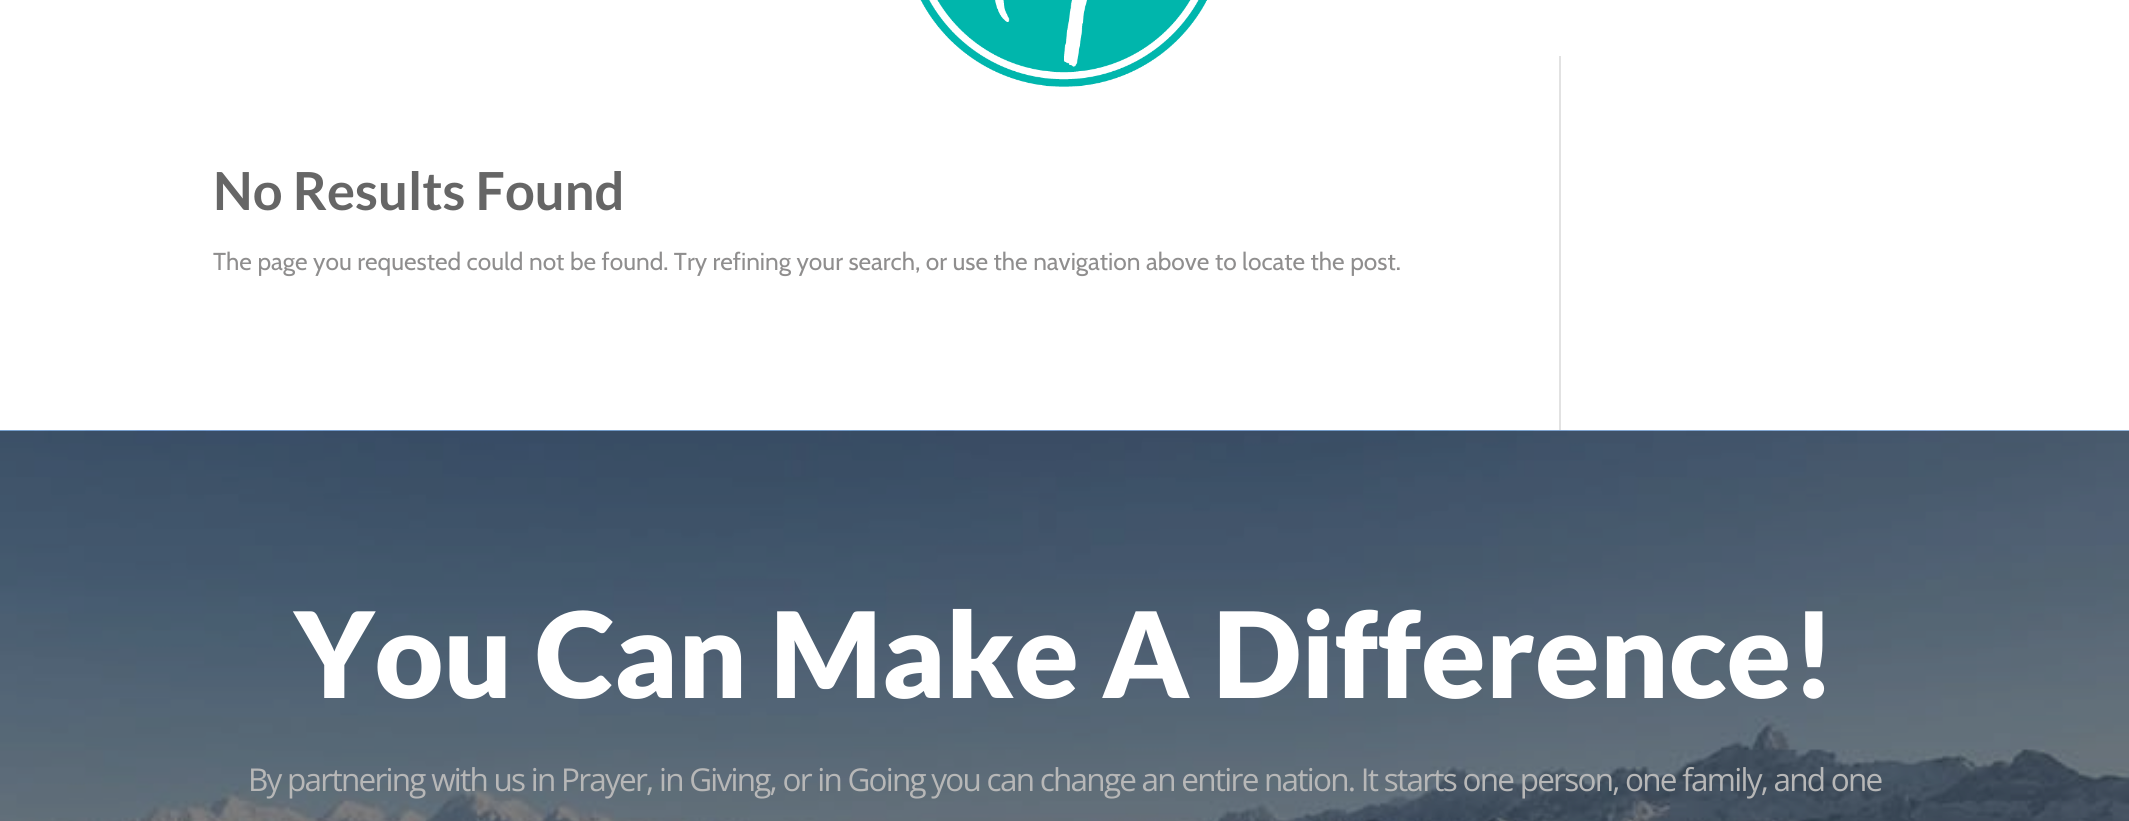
import math
import cairo

surface = cairo.ImageSurface(cairo.FORMAT_RGB24, 2129, 821)
ctx = cairo.Context(surface)
options = cairo.FontOptions()
options.set_hint_metrics(cairo.HINT_METRICS_OFF)
options.set_hint_style(cairo.HINT_STYLE_NONE)
ctx.set_font_options(options)
ctx.set_miter_limit(4)


def set_color(code):
    ctx.set_source_rgb(*(v / 255 for v in bytes.fromhex(code[-6:])))


def draw_text(x, y, s, family, size, color, bold=False, italic=False):
    ctx.select_font_face(family, cairo.FONT_SLANT_ITALIC if italic else cairo.FONT_SLANT_NORMAL, cairo.FONT_WEIGHT_BOLD if bold else cairo.FONT_WEIGHT_NORMAL)
    ctx.set_font_size(size)
    set_color(color)
    ctx.move_to(x, y)
    ctx.show_text(s)


def draw_spaced(x, y, s, letter, word):
    ctx.move_to(x, y)
    for ch in s:
        ctx.show_text(ch)
        ctx.rel_move_to(letter + word * (ch == ' '), 0)


def fill_rect(x, y, w, h, color):
    set_color(color)
    ctx.rectangle(x, y, w, h)
    ctx.fill()


def draw_image(path, x, y, w, h):
    ctx.save()
    ctx.set_source_surface(cairo.ImageSurface.create_from_png(path), x, y)
    ctx.rectangle(x, y, w, h)
    ctx.fill()
    ctx.restore()


set_color("#ffffff")
ctx.paint()
draw_image("assets/img1.png", 920, 0, 287, 87)
draw_text(213, 210, "No Results Found", "Lato", 52.5, "#666666", bold=True)
draw_text(213, 270, "The page you requested could not be found. Try refining your search, or use the navigation above to locate the post.", "Cabin", 24.5, "#8f8e8e")
fill_rect(1559, 56, 2, 375, "#e2e2e2")
draw_image("assets/img2.png", 0, 430, 2129, 391)
draw_text(294, 698, "You Can Make A Difference!", "Lato Black", 119, "#ffffff")
ctx.select_font_face("Open Sans")
ctx.set_font_size(31.5)
set_color("#b7b7b7")
draw_spaced(248, 791, "By partnering with us in Prayer, in Giving, or in Going you can change an entire nation. It starts one person, one family, and one", -1.75, 0)
surface.write_to_png("output.png")
